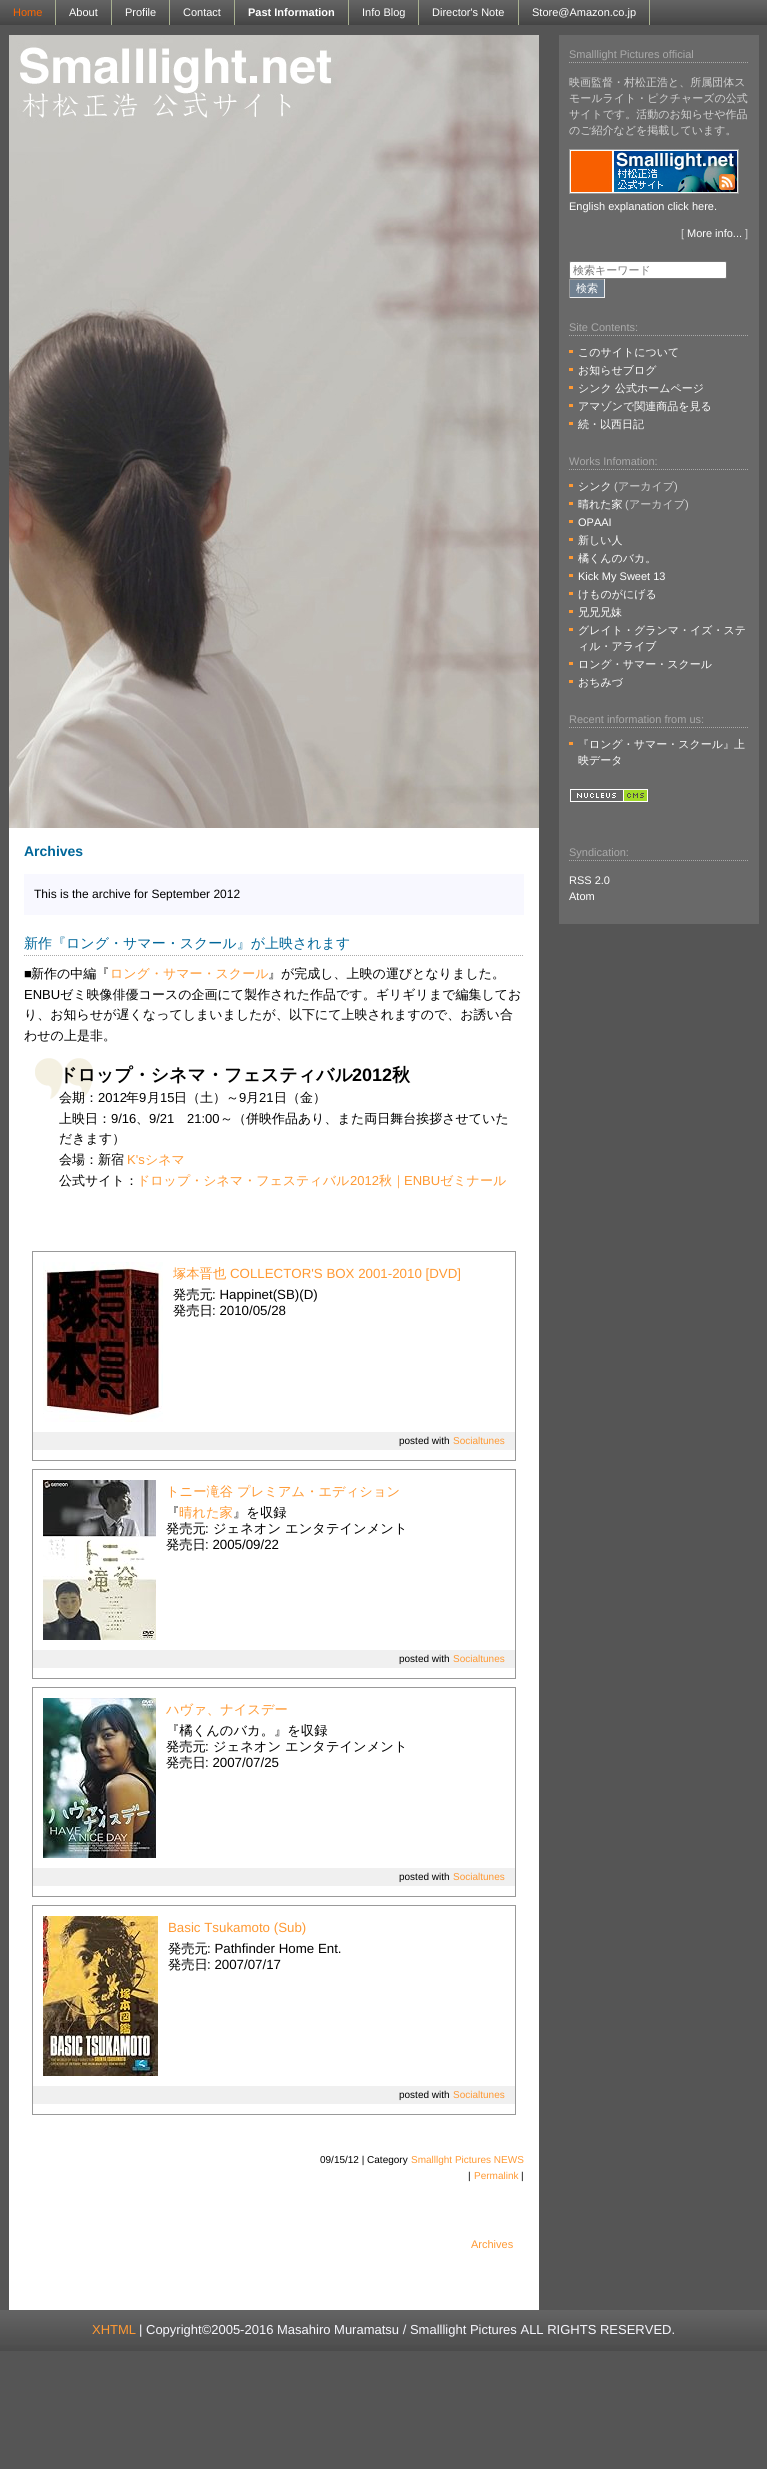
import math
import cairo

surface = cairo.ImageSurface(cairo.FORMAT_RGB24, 767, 2469)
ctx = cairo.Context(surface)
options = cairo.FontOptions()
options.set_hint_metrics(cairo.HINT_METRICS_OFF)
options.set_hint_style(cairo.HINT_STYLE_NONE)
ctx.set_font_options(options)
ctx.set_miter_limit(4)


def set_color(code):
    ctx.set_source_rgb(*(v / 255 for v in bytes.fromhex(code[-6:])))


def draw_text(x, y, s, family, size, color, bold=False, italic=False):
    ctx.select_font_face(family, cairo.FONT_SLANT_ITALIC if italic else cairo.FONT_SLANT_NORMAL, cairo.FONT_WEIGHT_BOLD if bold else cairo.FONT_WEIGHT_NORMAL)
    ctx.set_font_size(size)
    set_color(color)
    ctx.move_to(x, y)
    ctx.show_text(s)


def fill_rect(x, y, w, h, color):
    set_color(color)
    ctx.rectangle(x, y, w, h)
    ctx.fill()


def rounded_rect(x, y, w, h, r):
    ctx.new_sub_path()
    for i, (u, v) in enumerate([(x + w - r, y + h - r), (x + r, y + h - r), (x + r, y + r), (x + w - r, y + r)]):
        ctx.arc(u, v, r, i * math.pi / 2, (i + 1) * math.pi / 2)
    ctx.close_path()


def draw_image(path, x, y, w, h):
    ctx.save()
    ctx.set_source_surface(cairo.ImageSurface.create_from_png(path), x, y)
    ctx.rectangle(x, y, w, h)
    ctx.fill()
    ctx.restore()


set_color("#555555")
ctx.paint()
draw_image("assets/img1.png", 0, 0, 767, 25)
fill_rect(55, 0, 1, 25, "#a8b090")
draw_text(13, 16, "Home", "Liberation Sans", 11, "#ff6600")
fill_rect(111, 0, 1, 25, "#a8b090")
draw_text(69, 16, "About", "Liberation Sans", 11, "#ffffff")
fill_rect(169, 0, 1, 25, "#a8b090")
draw_text(125, 16, "Profile", "Liberation Sans", 11, "#ffffff")
fill_rect(234, 0, 1, 25, "#a8b090")
draw_text(183, 16, "Contact", "Liberation Sans", 11, "#ffffff")
fill_rect(348, 0, 1, 25, "#a8b090")
draw_text(248, 16, "Past Information", "Liberation Sans", 11, "#ffffff", bold=True)
fill_rect(418, 0, 1, 25, "#a8b090")
draw_text(362, 16, "Info Blog", "Liberation Sans", 11, "#ffffff")
fill_rect(518, 0, 1, 25, "#a8b090")
draw_text(432, 16, "Director's Note", "Liberation Sans", 11, "#ffffff")
fill_rect(649, 0, 1, 25, "#a8b090")
draw_text(532, 16, "Store@Amazon.co.jp", "Liberation Sans", 11, "#ffffff")
fill_rect(559, 35, 200, 889, "#696969")
ctx.new_path()
ctx.move_to(569, 62.5)
ctx.line_to(749, 62.5)
set_color("#a9a9a9")
ctx.set_line_width(1)
ctx.set_dash([1, 1])
ctx.stroke()
draw_text(569, 58, "Smalllight Pictures official", "Liberation Sans", 11, "#a9a9a9")
draw_text(569, 86, "映画監督・村松正浩と、所属団体ス", "WenQuanYi Zen Hei Medium", 11, "#d3d3d3")
draw_text(569, 102, "モールライト・ピクチャーズの公式", "WenQuanYi Zen Hei Medium", 11, "#d3d3d3")
draw_text(569, 118, "サイトです。活動のお知らせや作品", "WenQuanYi Zen Hei Medium", 11, "#d3d3d3")
draw_text(569, 134, "のご紹介などを掲載しています。", "WenQuanYi Zen Hei Medium", 11, "#d3d3d3")
draw_image("assets/img2.png", 569, 149, 170, 45)
draw_text(569, 210, "English explanation click here.", "Liberation Sans", 11, "#ffffff")
draw_text(681, 237, "[", "Liberation Sans", 11, "#d3d3d3")
draw_text(687, 237, "More info...", "Liberation Sans", 11, "#ffffff")
draw_text(745, 237, "]", "Liberation Sans", 11, "#d3d3d3")
set_color("#ffffff")
rounded_rect(569.5, 261.5, 157, 17, 1.5)
ctx.fill_preserve()
set_color("#767676")
ctx.set_dash([])
ctx.stroke()
draw_text(573, 274, "検索キーワード", "WenQuanYi Zen Hei Medium", 11, "#757575")
fill_rect(570, 280, 34, 17, "#708090")
fill_rect(569, 279, 36, 1, "#999999")
fill_rect(604, 279, 1, 19, "#eeeeee")
fill_rect(569, 297, 36, 1, "#eeeeee")
fill_rect(569, 279, 1, 19, "#999999")
draw_text(576, 292, "検索", "WenQuanYi Zen Hei Medium", 11, "#ffffff")
ctx.new_path()
ctx.move_to(569, 335.5)
ctx.line_to(749, 335.5)
set_color("#a9a9a9")
ctx.set_dash([1, 1])
ctx.stroke()
draw_text(569, 331, "Site Contents:", "Liberation Sans", 11, "#a9a9a9")
fill_rect(569, 350, 4, 3, "#ff9933")
draw_text(578, 356, "このサイトについて", "WenQuanYi Zen Hei Medium", 11, "#ffffff")
fill_rect(569, 368, 4, 3, "#ff9933")
draw_text(578, 374, "お知らせブログ", "WenQuanYi Zen Hei Medium", 11, "#ffffff")
fill_rect(569, 386, 4, 3, "#ff9933")
draw_text(578, 392, "シンク 公式ホームページ", "WenQuanYi Zen Hei Medium", 11, "#ffffff")
fill_rect(569, 404, 4, 3, "#ff9933")
draw_text(578, 410, "アマゾンで関連商品を見る", "WenQuanYi Zen Hei Medium", 11, "#ffffff")
fill_rect(569, 422, 4, 3, "#ff9933")
draw_text(578, 428, "続・以西日記", "WenQuanYi Zen Hei Medium", 11, "#ffffff")
ctx.new_path()
ctx.move_to(569, 469.5)
ctx.line_to(749, 469.5)
set_color("#a9a9a9")
ctx.stroke()
draw_text(569, 465, "Works Infomation:", "Liberation Sans", 11, "#a9a9a9")
fill_rect(569, 484, 4, 3, "#ff9933")
draw_text(578, 490, "シンク", "WenQuanYi Zen Hei Medium", 11, "#ffffff")
draw_text(614, 490, "(", "Liberation Sans", 11, "#d3d3d3")
draw_text(618, 490, "アーカイブ", "WenQuanYi Zen Hei Medium", 11, "#d3d3d3")
draw_text(674, 490, ")", "Liberation Sans", 11, "#d3d3d3")
fill_rect(569, 502, 4, 3, "#ff9933")
draw_text(578, 508, "晴れた家", "WenQuanYi Zen Hei Medium", 11, "#ffffff")
draw_text(625, 508, "(", "Liberation Sans", 11, "#d3d3d3")
draw_text(629, 508, "アーカイブ", "WenQuanYi Zen Hei Medium", 11, "#d3d3d3")
draw_text(685, 508, ")", "Liberation Sans", 11, "#d3d3d3")
fill_rect(569, 520, 4, 3, "#ff9933")
draw_text(578, 526, "OPAAI", "Liberation Sans", 11, "#ffffff")
fill_rect(569, 538, 4, 3, "#ff9933")
draw_text(578, 544, "新しい人", "WenQuanYi Zen Hei Medium", 11, "#ffffff")
fill_rect(569, 556, 4, 3, "#ff9933")
draw_text(578, 562, "橘くんのバカ。", "WenQuanYi Zen Hei Medium", 11, "#ffffff")
fill_rect(569, 574, 4, 3, "#ff9933")
draw_text(578, 580, "Kick My Sweet 13", "Liberation Sans", 11, "#ffffff")
fill_rect(569, 592, 4, 3, "#ff9933")
draw_text(578, 598, "けものがにげる", "WenQuanYi Zen Hei Medium", 11, "#ffffff")
fill_rect(569, 610, 4, 3, "#ff9933")
draw_text(578, 616, "兄兄兄妹", "WenQuanYi Zen Hei Medium", 11, "#ffffff")
fill_rect(569, 628, 4, 3, "#ff9933")
draw_text(578, 634, "グレイト・グランマ・イズ・ステ", "WenQuanYi Zen Hei Medium", 11, "#ffffff")
draw_text(578, 650, "ィル・アライブ", "WenQuanYi Zen Hei Medium", 11, "#ffffff")
fill_rect(569, 662, 4, 3, "#ff9933")
draw_text(578, 668, "ロング・サマー・スクール", "WenQuanYi Zen Hei Medium", 11, "#ffffff")
fill_rect(569, 680, 4, 3, "#ff9933")
draw_text(578, 686, "おちみづ", "WenQuanYi Zen Hei Medium", 11, "#ffffff")
ctx.new_path()
ctx.move_to(569, 727.5)
ctx.line_to(749, 727.5)
set_color("#a9a9a9")
ctx.stroke()
draw_text(569, 723, "Recent information from us:", "Liberation Sans", 11, "#a9a9a9")
fill_rect(569, 742, 4, 3, "#ff9933")
draw_text(578, 748, "『ロング・サマー・スクール』上", "WenQuanYi Zen Hei Medium", 11, "#ffffff")
draw_text(578, 764, "映データ", "WenQuanYi Zen Hei Medium", 11, "#ffffff")
draw_image("assets/img3.png", 570, 789, 78, 13)
ctx.new_path()
ctx.move_to(569, 860.5)
ctx.line_to(749, 860.5)
set_color("#a9a9a9")
ctx.stroke()
draw_text(569, 856, "Syndication:", "Liberation Sans", 11, "#a9a9a9")
draw_text(569, 884, "RSS 2.0", "Liberation Sans", 11, "#ffffff")
draw_text(569, 900, "Atom", "Liberation Sans", 11, "#ffffff")
fill_rect(9, 828, 530, 1482, "#ffffff")
draw_image("assets/img4.png", 9, 35, 530, 793)
draw_text(24, 856, "Archives", "Liberation Sans", 14, "#006699", bold=True)
fill_rect(24, 874, 500, 41, "#f8f8ff")
draw_text(34, 898, "This is the archive for September 2012", "Liberation Sans", 12, "#000000")
ctx.new_path()
ctx.move_to(24, 955.5)
ctx.line_to(524, 955.5)
set_color("#a9a9a9")
ctx.stroke()
draw_text(24, 948, "新作『ロング・サマー・スクール』が上映されます", "WenQuanYi Zen Hei Medium", 14, "#006699")
draw_text(24, 978, "■", "Liberation Sans", 13, "#000000")
draw_text(31, 978, "新作の中編『", "WenQuanYi Zen Hei Medium", 13, "#000000")
draw_text(110, 978, "ロング・サマー・スクール", "WenQuanYi Zen Hei Medium", 13, "#ff9933")
draw_text(268, 978, "』が完成し、上映の運びとなりました。", "WenQuanYi Zen Hei Medium", 13, "#000000")
draw_text(24, 999, "ENBU", "Liberation Sans", 13, "#000000")
draw_text(60, 999, "ゼミ映像俳優コースの企画にて製作された作品です。ギリギリまで編集してお", "WenQuanYi Zen Hei Medium", 13, "#000000")
draw_text(24, 1019, "り、お知らせが遅くなってしまいましたが、以下にて上映されますので、お誘い合", "WenQuanYi Zen Hei Medium", 13, "#000000")
draw_text(24, 1040, "わせの上是非。", "WenQuanYi Zen Hei Medium", 13, "#000000")
draw_image("assets/img5.png", 35, 1058, 58, 41)
draw_text(59, 1081, "ドロップ・シネマ・フェスティバル", "WenQuanYi Zen Hei", 18, "#000000", bold=True)
draw_text(352, 1081, "2012", "Liberation Sans", 18, "#000000", bold=True)
draw_text(392, 1081, "秋", "WenQuanYi Zen Hei", 18, "#000000", bold=True)
draw_text(59, 1102, "会期：", "WenQuanYi Zen Hei Medium", 13, "#000000")
draw_text(98, 1102, "2012", "Liberation Sans", 13, "#000000")
draw_text(126, 1102, "年", "WenQuanYi Zen Hei Medium", 13, "#000000")
draw_text(139, 1102, "9", "Liberation Sans", 13, "#000000")
draw_text(147, 1102, "月", "WenQuanYi Zen Hei Medium", 13, "#000000")
draw_text(160, 1102, "15", "Liberation Sans", 13, "#000000")
draw_text(174, 1102, "日（土）～", "WenQuanYi Zen Hei Medium", 13, "#000000")
draw_text(239, 1102, "9", "Liberation Sans", 13, "#000000")
draw_text(246, 1102, "月", "WenQuanYi Zen Hei Medium", 13, "#000000")
draw_text(259, 1102, "21", "Liberation Sans", 13, "#000000")
draw_text(274, 1102, "日（金）", "WenQuanYi Zen Hei Medium", 13, "#000000")
draw_text(59, 1123, "上映日：", "WenQuanYi Zen Hei Medium", 13, "#000000")
draw_text(111, 1123, "9/16", "Liberation Sans", 13, "#000000")
draw_text(136, 1123, "、", "WenQuanYi Zen Hei Medium", 13, "#000000")
draw_text(149, 1123, "9/21", "Liberation Sans", 13, "#000000")
draw_text(187, 1123, "21:00", "Liberation Sans", 13, "#000000")
draw_text(220, 1123, "～（併映作品あり、また両日舞台挨拶させていた", "WenQuanYi Zen Hei Medium", 13, "#000000")
draw_text(59, 1143, "だきます）", "WenQuanYi Zen Hei Medium", 13, "#000000")
draw_text(59, 1164, "会場：新宿", "WenQuanYi Zen Hei Medium", 13, "#000000")
draw_text(127, 1164, "K's", "Liberation Sans", 13, "#ff9933")
draw_text(145, 1164, "シネマ", "WenQuanYi Zen Hei Medium", 13, "#ff9933")
draw_text(59, 1185, "公式サイト：", "WenQuanYi Zen Hei Medium", 13, "#000000")
draw_text(137, 1185, "ドロップ・シネマ・フェスティバル", "WenQuanYi Zen Hei Medium", 13, "#ff9933")
draw_text(350, 1185, "2012", "Liberation Sans", 13, "#ff9933")
draw_text(379, 1185, "秋｜", "WenQuanYi Zen Hei Medium", 13, "#ff9933")
draw_text(404, 1185, "ENBU", "Liberation Sans", 13, "#ff9933")
draw_text(440, 1185, "ゼミナール", "WenQuanYi Zen Hei Medium", 13, "#ff9933")
ctx.rectangle(32.5, 1251.5, 483, 209)
set_color("#999999")
ctx.set_dash([])
ctx.stroke()
draw_image("assets/img6.png", 43, 1262, 120, 160)
draw_text(173, 1278, "塚本晋也", "WenQuanYi Zen Hei Medium", 13.3, "#ff9933")
draw_text(230, 1278, "COLLECTOR'S BOX 2001-2010 [DVD]", "Liberation Sans", 13.3, "#ff9933")
draw_text(173, 1299, "発売元", "WenQuanYi Zen Hei Medium", 13.3, "#000000")
draw_text(212, 1299, ": Happinet(SB)(D)", "Liberation Sans", 13.3, "#000000")
draw_text(173, 1315, "発売日", "WenQuanYi Zen Hei Medium", 13.3, "#000000")
draw_text(212, 1315, ": 2010/05/28", "Liberation Sans", 13.3, "#000000")
fill_rect(33, 1432, 482, 18, "#f0f0f0")
draw_text(399, 1444, "posted with", "Liberation Sans", 10, "#000000")
draw_text(453, 1444, "Socialtunes", "Liberation Sans", 10, "#ff9933")
ctx.rectangle(32.5, 1469.5, 483, 209)
set_color("#999999")
ctx.stroke()
draw_image("assets/img7.png", 43, 1480, 113, 160)
draw_text(166, 1496, "トニー滝谷 プレミアム・エディション", "WenQuanYi Zen Hei Medium", 13.3, "#ff9933")
draw_text(166, 1517, "『", "WenQuanYi Zen Hei Medium", 13.3, "#000000")
draw_text(179, 1517, "晴れた家", "WenQuanYi Zen Hei Medium", 13.3, "#ff9933")
draw_text(233, 1517, "』を収録", "WenQuanYi Zen Hei Medium", 13.3, "#000000")
draw_text(166, 1533, "発売元", "WenQuanYi Zen Hei Medium", 13.3, "#000000")
draw_text(205, 1533, ":", "Liberation Sans", 13.3, "#000000")
draw_text(213, 1533, "ジェネオン エンタテインメント", "WenQuanYi Zen Hei Medium", 13.3, "#000000")
draw_text(166, 1549, "発売日", "WenQuanYi Zen Hei Medium", 13.3, "#000000")
draw_text(205, 1549, ": 2005/09/22", "Liberation Sans", 13.3, "#000000")
fill_rect(33, 1650, 482, 18, "#f0f0f0")
draw_text(399, 1662, "posted with", "Liberation Sans", 10, "#000000")
draw_text(453, 1662, "Socialtunes", "Liberation Sans", 10, "#ff9933")
ctx.rectangle(32.5, 1687.5, 483, 209)
set_color("#999999")
ctx.stroke()
draw_image("assets/img8.png", 43, 1698, 113, 160)
draw_text(166, 1714, "ハヴァ、ナイスデー", "WenQuanYi Zen Hei Medium", 13.3, "#ff9933")
draw_text(166, 1735, "『橘くんのバカ。』を収録", "WenQuanYi Zen Hei Medium", 13.3, "#000000")
draw_text(166, 1751, "発売元", "WenQuanYi Zen Hei Medium", 13.3, "#000000")
draw_text(205, 1751, ":", "Liberation Sans", 13.3, "#000000")
draw_text(213, 1751, "ジェネオン エンタテインメント", "WenQuanYi Zen Hei Medium", 13.3, "#000000")
draw_text(166, 1767, "発売日", "WenQuanYi Zen Hei Medium", 13.3, "#000000")
draw_text(205, 1767, ": 2007/07/25", "Liberation Sans", 13.3, "#000000")
fill_rect(33, 1868, 482, 18, "#f0f0f0")
draw_text(399, 1880, "posted with", "Liberation Sans", 10, "#000000")
draw_text(453, 1880, "Socialtunes", "Liberation Sans", 10, "#ff9933")
ctx.rectangle(32.5, 1905.5, 483, 209)
set_color("#999999")
ctx.stroke()
draw_image("assets/img9.png", 43, 1916, 115, 160)
draw_text(168, 1932, "Basic Tsukamoto (Sub)", "Liberation Sans", 13.3, "#ff9933")
draw_text(168, 1953, "発売元", "WenQuanYi Zen Hei Medium", 13.3, "#000000")
draw_text(207, 1953, ": Pathfinder Home Ent.", "Liberation Sans", 13.3, "#000000")
draw_text(168, 1969, "発売日", "WenQuanYi Zen Hei Medium", 13.3, "#000000")
draw_text(207, 1969, ": 2007/07/17", "Liberation Sans", 13.3, "#000000")
fill_rect(33, 2086, 482, 18, "#f0f0f0")
draw_text(399, 2098, "posted with", "Liberation Sans", 10, "#000000")
draw_text(453, 2098, "Socialtunes", "Liberation Sans", 10, "#ff9933")
draw_text(320, 2163, "09/15/12 | Category", "Liberation Sans", 10, "#000000")
draw_text(411, 2163, "Smalllght Pictures NEWS", "Liberation Sans", 10, "#ff9933")
draw_text(468, 2179, "|", "Liberation Sans", 10, "#000000")
draw_text(474, 2179, "Permalink", "Liberation Sans", 10, "#ff9933")
draw_text(521, 2179, "|", "Liberation Sans", 10, "#000000")
draw_text(471, 2248, "Archives", "Liberation Sans", 11, "#ff9933")
draw_image("assets/img10.png", 0, 2310, 767, 41)
draw_text(92, 2334, "XHTML", "Liberation Sans", 13, "#ff9933")
draw_text(139, 2334, "| Copyright©2005-2016 Masahiro Muramatsu / Smalllight Pictures ALL RIGHTS RESERVED.", "Liberation Sans", 13, "#f8f8ff")
surface.write_to_png("output.png")
